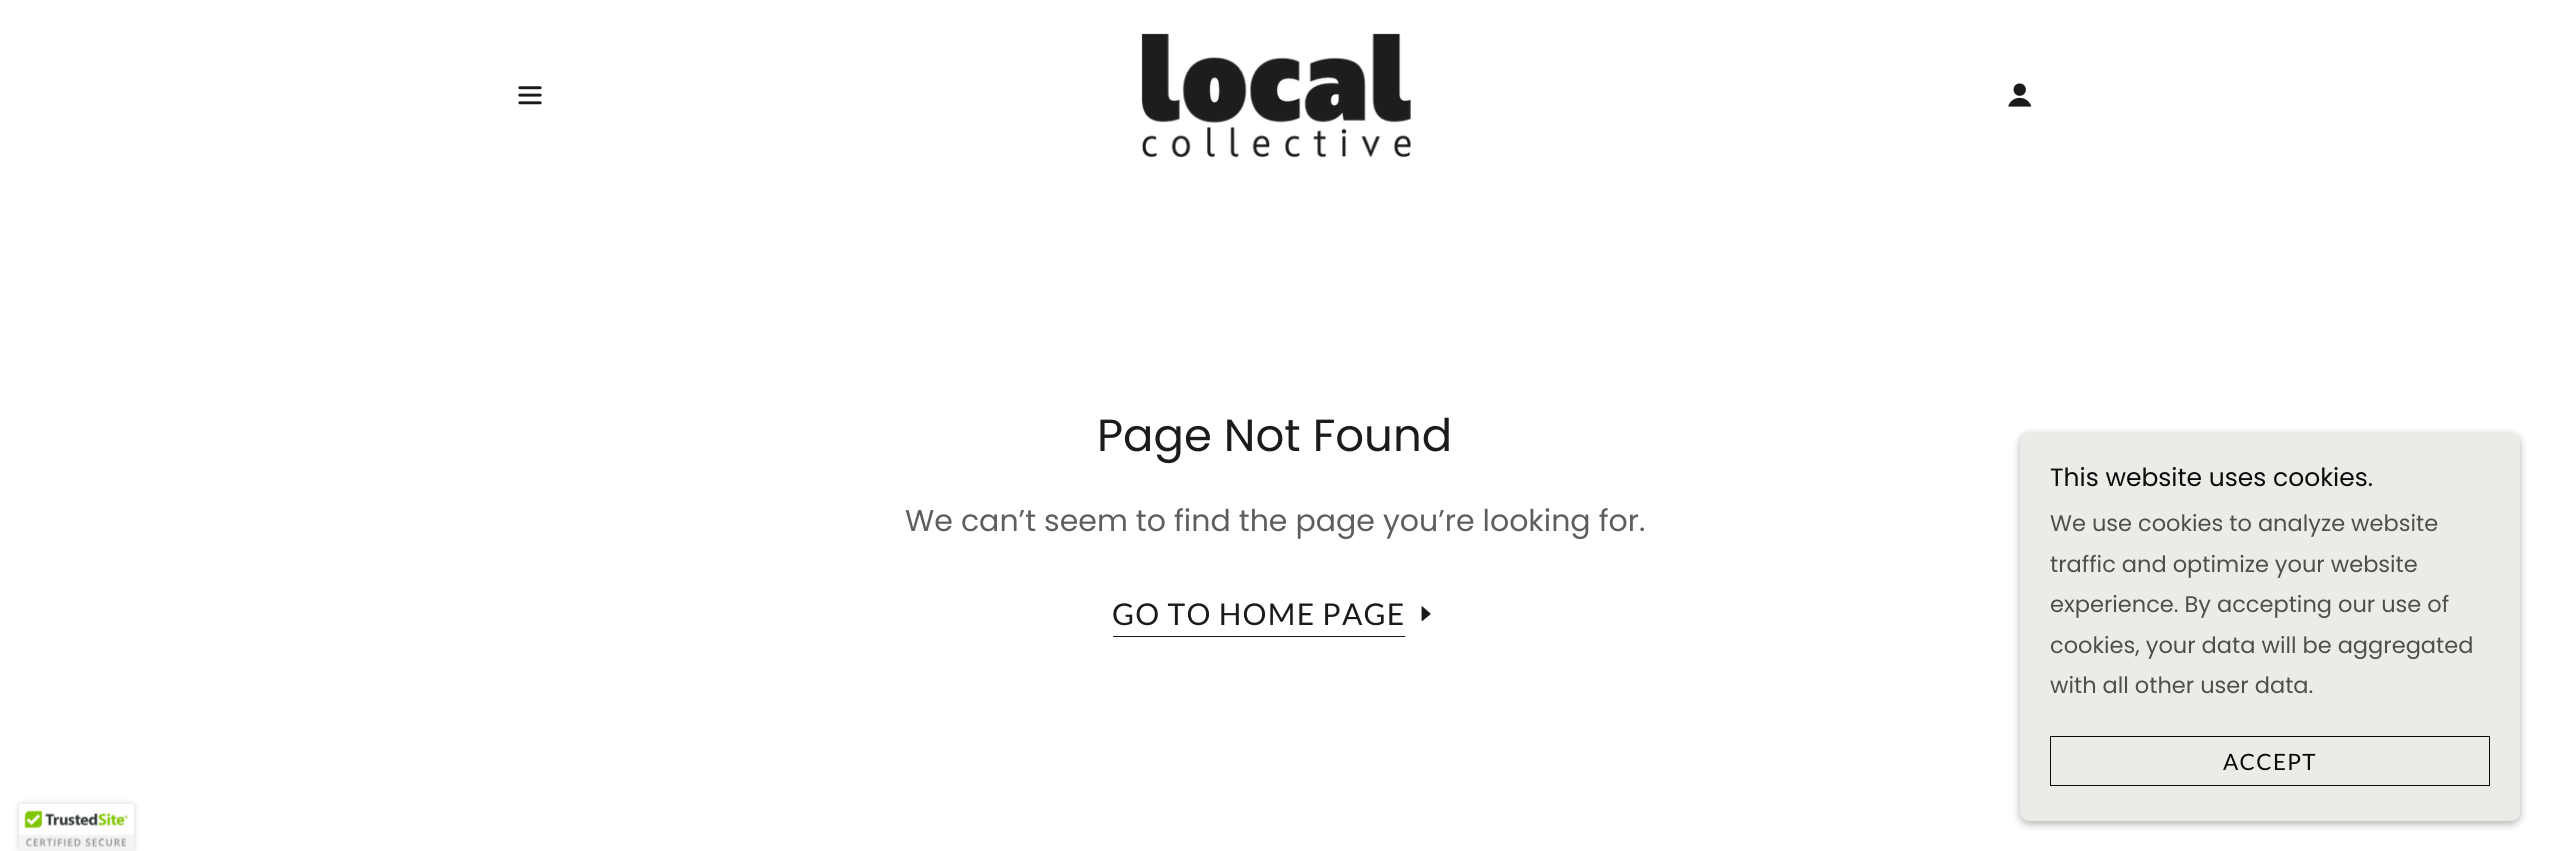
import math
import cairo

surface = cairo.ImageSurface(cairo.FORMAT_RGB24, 2549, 851)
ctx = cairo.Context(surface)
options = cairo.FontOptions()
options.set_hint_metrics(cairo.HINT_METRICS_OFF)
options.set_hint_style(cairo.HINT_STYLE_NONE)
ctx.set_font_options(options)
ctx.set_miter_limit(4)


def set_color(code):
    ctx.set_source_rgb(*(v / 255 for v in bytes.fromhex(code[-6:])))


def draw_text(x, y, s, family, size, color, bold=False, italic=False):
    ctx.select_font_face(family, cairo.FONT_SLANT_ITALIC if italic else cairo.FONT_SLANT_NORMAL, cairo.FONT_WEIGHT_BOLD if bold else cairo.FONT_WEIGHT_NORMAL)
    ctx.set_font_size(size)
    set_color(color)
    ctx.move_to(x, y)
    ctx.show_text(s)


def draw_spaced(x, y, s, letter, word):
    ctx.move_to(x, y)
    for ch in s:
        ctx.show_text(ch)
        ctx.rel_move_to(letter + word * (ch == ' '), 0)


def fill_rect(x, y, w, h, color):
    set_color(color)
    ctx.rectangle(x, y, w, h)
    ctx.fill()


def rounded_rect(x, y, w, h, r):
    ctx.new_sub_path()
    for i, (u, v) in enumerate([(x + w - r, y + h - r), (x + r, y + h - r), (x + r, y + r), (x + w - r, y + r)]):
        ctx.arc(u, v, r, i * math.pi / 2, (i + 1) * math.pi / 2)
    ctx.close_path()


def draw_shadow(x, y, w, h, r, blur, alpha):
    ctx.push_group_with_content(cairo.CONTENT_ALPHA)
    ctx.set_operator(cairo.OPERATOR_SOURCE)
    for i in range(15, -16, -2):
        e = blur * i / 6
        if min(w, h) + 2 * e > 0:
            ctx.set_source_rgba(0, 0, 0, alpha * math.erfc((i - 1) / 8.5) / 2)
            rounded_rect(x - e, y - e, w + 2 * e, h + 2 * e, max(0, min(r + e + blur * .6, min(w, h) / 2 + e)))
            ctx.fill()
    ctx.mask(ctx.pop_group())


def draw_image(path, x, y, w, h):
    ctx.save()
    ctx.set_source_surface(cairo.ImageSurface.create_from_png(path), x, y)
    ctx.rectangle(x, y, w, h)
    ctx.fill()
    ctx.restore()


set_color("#ffffff")
ctx.paint()
draw_image("assets/img1.png", 518, 86, 24, 19)
draw_image("assets/img2.png", 1141, 33, 270, 125)
draw_image("assets/img3.png", 2008, 83, 24, 24)
draw_text(1097, 451, "Page Not Found", "Poppins", 45, "#1b1b1b")
draw_text(905, 531, "We can’t seem to find the page you’re looking for.", "Poppins", 30, "#5e5e5e")
fill_rect(1113, 636, 292, 1, "#1b1b1b")
ctx.select_font_face("Lato")
draw_spaced(1112, 625, "GO TO HOME PAGE", 1.25, 0)
draw_image("assets/img4.png", 1421, 606, 10, 16)
set_color("#000000")
draw_shadow(2020, 435, 500, 389, 9, 4, 0.3)
set_color("#edebe8")
rounded_rect(2020, 433, 500, 388, 9)
ctx.fill()
draw_text(2050, 486, "This website uses cookies.", "Poppins", 25, "#0b0b0b")
draw_text(2050, 531, "We use cookies to analyze website", "Poppins", 22.5, "#4f4e4d")
draw_text(2050, 572, "traffic and optimize your website", "Poppins", 22.5, "#4f4e4d")
draw_text(2050, 612, "experience. By accepting our use of", "Poppins", 22.5, "#4f4e4d")
draw_text(2050, 653, "cookies, your data will be aggregated", "Poppins", 22.5, "#4f4e4d")
draw_text(2050, 693, "with all other user data.", "Poppins", 22.5, "#4f4e4d")
ctx.rectangle(2050.5, 736.5, 439, 49)
set_color("#0b0b0b")
ctx.set_line_width(1)
ctx.stroke()
ctx.select_font_face("Lato")
draw_spaced(2223, 770, "ACCEPT", 1.25, 0)
set_color("#000000")
draw_shadow(19, 804, 115, 47, 2.5, 3, 0.2)
set_color("#ffffff")
ctx.new_path()
ctx.move_to(21.5, 804)
ctx.line_to(131.5, 804)
ctx.curve_to(133, 804, 134, 805, 134, 806.5)
ctx.line_to(134, 851)
ctx.line_to(19, 851)
ctx.line_to(19, 806.5)
ctx.curve_to(19, 805, 20, 804, 21.5, 804)
ctx.close_path()
ctx.fill()
draw_image("assets/img5.png", 18, 803, 116, 48)
surface.write_to_png("output.png")
